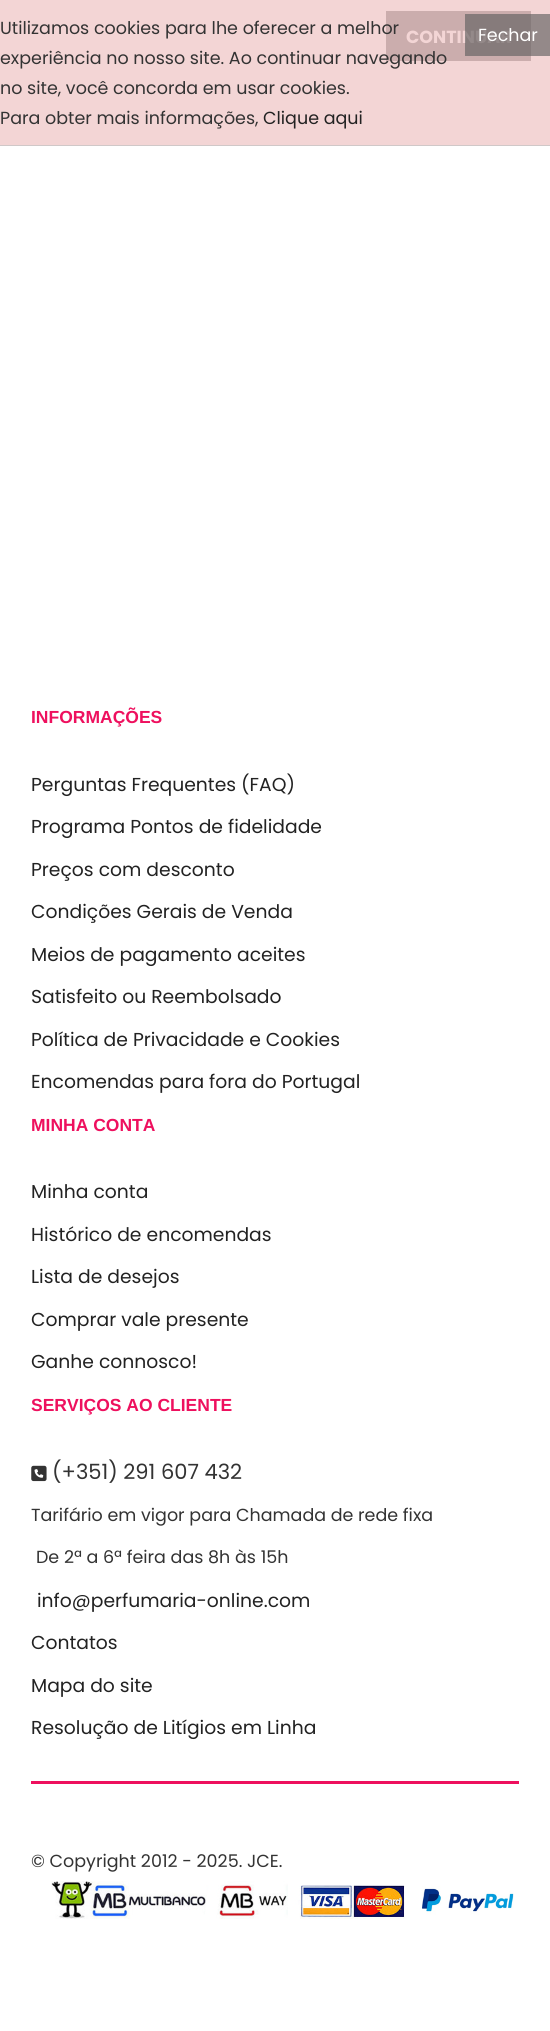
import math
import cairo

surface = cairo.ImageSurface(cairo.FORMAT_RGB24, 550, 2031)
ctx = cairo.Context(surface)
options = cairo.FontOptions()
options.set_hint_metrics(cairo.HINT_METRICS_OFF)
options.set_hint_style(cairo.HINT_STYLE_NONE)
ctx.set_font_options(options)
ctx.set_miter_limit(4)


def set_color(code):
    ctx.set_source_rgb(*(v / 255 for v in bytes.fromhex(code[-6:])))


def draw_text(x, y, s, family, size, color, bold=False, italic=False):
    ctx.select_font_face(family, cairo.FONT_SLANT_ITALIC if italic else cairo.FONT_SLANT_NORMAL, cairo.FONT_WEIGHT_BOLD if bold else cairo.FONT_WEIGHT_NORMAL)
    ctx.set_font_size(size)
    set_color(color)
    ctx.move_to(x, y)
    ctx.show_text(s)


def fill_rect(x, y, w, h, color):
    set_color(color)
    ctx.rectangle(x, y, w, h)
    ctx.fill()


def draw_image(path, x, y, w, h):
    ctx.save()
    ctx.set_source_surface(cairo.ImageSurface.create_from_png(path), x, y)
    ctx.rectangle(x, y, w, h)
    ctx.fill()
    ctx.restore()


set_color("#ffffff")
ctx.paint()
fill_rect(0, 0, 550, 145, "#f3d5d5")
fill_rect(0, 145, 550, 1, "#d0c8c8")
fill_rect(386, 11, 145, 50, "#cbadad")
draw_text(0, 34, "Utilizamos cookies para lhe oferecer a melhor", "Poppins", 17.5, "#333333")
draw_text(406, 43, "CONTINUAR", "Poppins", 17.5, "#f3d5d5", bold=True)
ctx.set_source_rgba(0.38, 0.38, 0.38, 0.65)
ctx.rectangle(465, 14, 85, 42)
ctx.fill()
draw_text(478, 41, "Fechar", "Poppins", 17.5, "#ffffff")
draw_text(0, 64, "experiência no nosso site. Ao continuar navegando", "Poppins", 17.5, "#333333")
draw_text(0, 94, "no site, você concorda em usar cookies.", "Poppins", 17.5, "#333333")
draw_text(0, 124, "Para obter mais informações,", "Poppins", 17.5, "#333333")
draw_text(263, 124, "Clique aqui", "Poppins", 17.5, "#222222")
draw_text(31, 723, "INFORMAÇÕES", "Liberation Sans", 17.5, "#ee105e", bold=True)
draw_text(31, 791, "Perguntas Frequentes (FAQ)", "Poppins", 18.75, "#222222")
draw_text(31, 833, "Programa Pontos de fidelidade", "Poppins", 18.75, "#222222")
draw_text(31, 876, "Preços com desconto", "Poppins", 18.75, "#222222")
draw_text(31, 918, "Condições Gerais de Venda", "Poppins", 18.75, "#222222")
draw_text(31, 961, "Meios de pagamento aceites", "Poppins", 18.75, "#222222")
draw_text(31, 1003, "Satisfeito ou Reembolsado", "Poppins", 18.75, "#222222")
draw_text(31, 1046, "Política de Privacidade e Cookies", "Poppins", 18.75, "#222222")
draw_text(31, 1088, "Encomendas para fora do Portugal", "Poppins", 18.75, "#222222")
draw_text(31, 1131, "MINHA CONTA", "Liberation Sans", 17.5, "#ee105e", bold=True)
draw_text(31, 1198, "Minha conta", "Poppins", 18.75, "#222222")
draw_text(31, 1241, "Histórico de encomendas", "Poppins", 18.75, "#222222")
draw_text(31, 1283, "Lista de desejos", "Poppins", 18.75, "#222222")
draw_text(31, 1326, "Comprar vale presente", "Poppins", 18.75, "#222222")
draw_text(31, 1368, "Ganhe connosco!", "Poppins", 18.75, "#222222")
draw_text(31, 1411, "SERVIÇOS AO CLIENTE", "Liberation Sans", 17.5, "#ee105e", bold=True)
draw_image("assets/img1.png", 31, 1465, 16, 17)
draw_text(52, 1479, "(+351) 291 607 432", "Poppins", 21, "#333333")
draw_text(31, 1521, "Tarifário em vigor para Chamada de rede fixa", "Poppins", 17.5, "#333333")
draw_text(36, 1563, "De 2ª a 6ª feira das 8h às 15h", "Poppins", 17.5, "#333333")
draw_text(37, 1607, "info@perfumaria-online.com", "Poppins", 18.75, "#222222")
draw_text(31, 1649, "Contatos", "Poppins", 18.75, "#222222")
draw_text(31, 1692, "Mapa do site", "Poppins", 18.75, "#222222")
draw_text(31, 1734, "Resolução de Litígios em Linha", "Poppins", 18.75, "#222222")
fill_rect(31, 1781, 488, 3, "#ee105e")
draw_text(31, 1867, "© Copyright 2012 - 2025. JCE.", "Poppins", 17.5, "#333333")
draw_image("assets/img2.png", 51, 1881, 463, 38)
surface.write_to_png("output.png")
